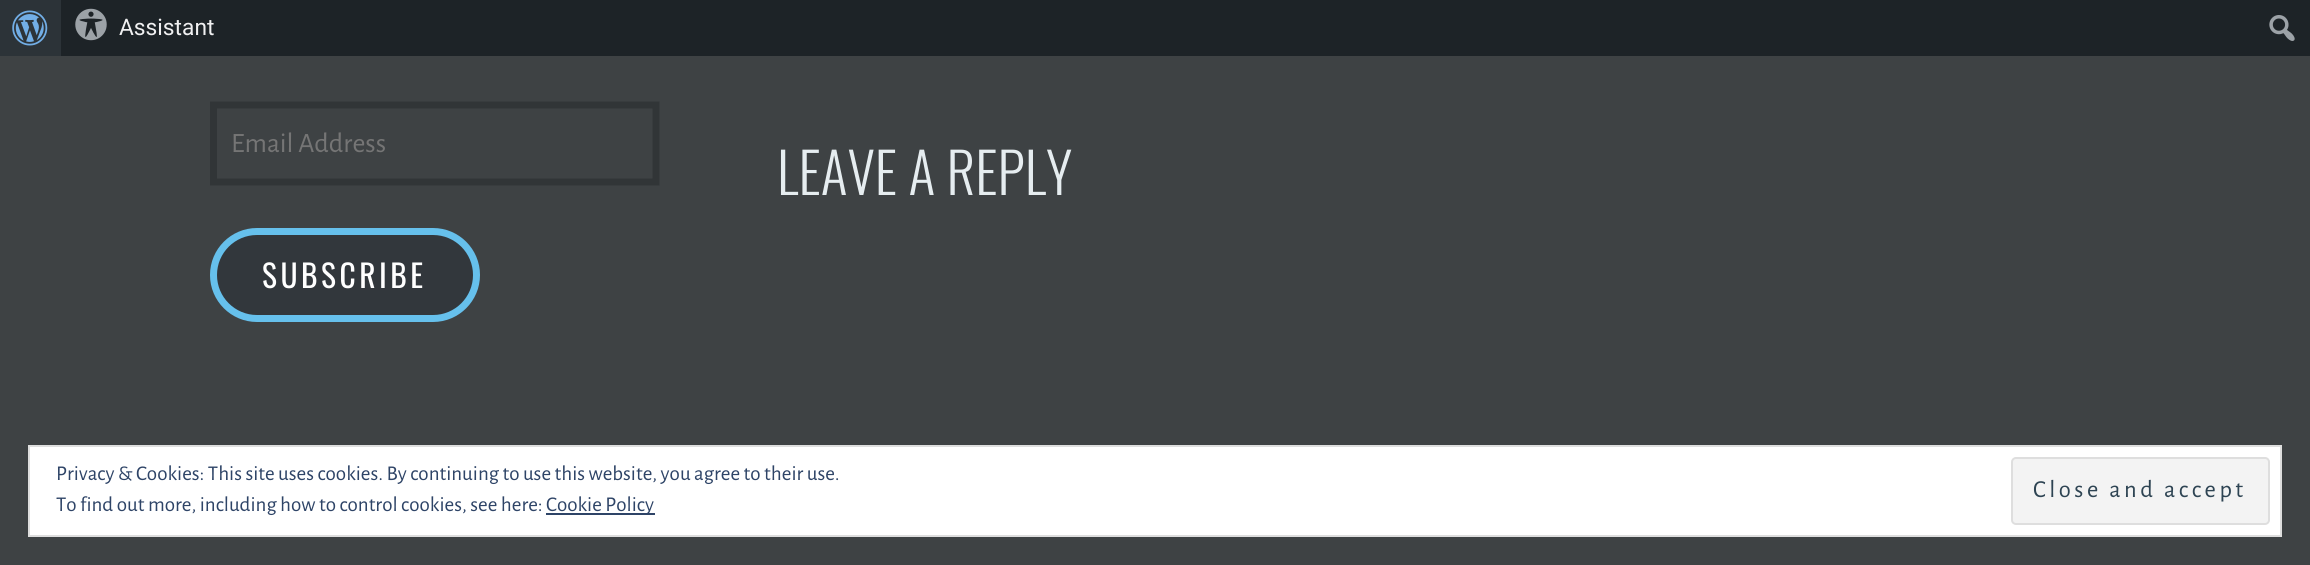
import math
import cairo

surface = cairo.ImageSurface(cairo.FORMAT_RGB24, 2310, 565)
ctx = cairo.Context(surface)
options = cairo.FontOptions()
options.set_hint_metrics(cairo.HINT_METRICS_OFF)
options.set_hint_style(cairo.HINT_STYLE_NONE)
ctx.set_font_options(options)
ctx.set_miter_limit(4)


def set_color(code):
    ctx.set_source_rgb(*(v / 255 for v in bytes.fromhex(code[-6:])))


def draw_text(x, y, s, family, size, color, bold=False, italic=False):
    ctx.select_font_face(family, cairo.FONT_SLANT_ITALIC if italic else cairo.FONT_SLANT_NORMAL, cairo.FONT_WEIGHT_BOLD if bold else cairo.FONT_WEIGHT_NORMAL)
    ctx.set_font_size(size)
    set_color(color)
    ctx.move_to(x, y)
    ctx.show_text(s)


def draw_spaced(x, y, s, letter, word):
    ctx.move_to(x, y)
    for ch in s:
        ctx.show_text(ch)
        ctx.rel_move_to(letter + word * (ch == ' '), 0)


def fill_rect(x, y, w, h, color):
    set_color(color)
    ctx.rectangle(x, y, w, h)
    ctx.fill()


def rounded_rect(x, y, w, h, r):
    ctx.new_sub_path()
    for i, (u, v) in enumerate([(x + w - r, y + h - r), (x + r, y + h - r), (x + r, y + r), (x + w - r, y + r)]):
        ctx.arc(u, v, r, i * math.pi / 2, (i + 1) * math.pi / 2)
    ctx.close_path()


def draw_image(path, x, y, w, h):
    ctx.save()
    ctx.set_source_surface(cairo.ImageSurface.create_from_png(path), x, y)
    ctx.rectangle(x, y, w, h)
    ctx.fill()
    ctx.restore()


set_color("#3e4244")
ctx.paint()
fill_rect(61, 0, 2249, 56, "#1d2327")
fill_rect(0, 0, 61, 56, "#2c3338")
draw_image("assets/img1.png", 12, 10, 36, 36)
draw_image("assets/img2.png", 75, 8, 32, 33)
draw_text(119, 35, "Assistant", "Roboto", 22.75, "#f0f0f1")
draw_image("assets/img3.png", 2269, 15, 26, 26)
ctx.new_path()
ctx.move_to(213.5, 105)
ctx.line_to(656, 105)
ctx.line_to(656, 182)
ctx.line_to(213.5, 182)
ctx.close_path()
set_color("#313537")
ctx.set_line_width(7)
ctx.stroke()
draw_text(231, 152, "Email Address", "Alegreya Sans", 28, "#757575")
set_color("#32373c")
rounded_rect(213.5, 231.5, 263, 87, 43.5)
ctx.fill_preserve()
set_color("#66c0ec")
ctx.stroke()
ctx.select_font_face("Oswald")
ctx.set_font_size(31.5)
set_color("#ffffff")
draw_spaced(262, 288, "SUBSCRIBE", 3.5, 0)
draw_text(777, 195, "LEAVE A REPLY", "Oswald Light", 56, "#e6edf0")
set_color("#ffffff")
ctx.rectangle(29, 446, 2252, 90)
ctx.fill_preserve()
set_color("#dedede")
ctx.set_line_width(2)
ctx.stroke()
draw_text(56, 480, "Privacy & Cookies: This site uses cookies. By continuing to use this website, you agree to their use.", "Alegreya Sans", 21, "#2e4467")
set_color("#f3f3f3")
rounded_rect(2012, 458, 257, 66, 4)
ctx.fill_preserve()
set_color("#dedede")
ctx.stroke()
ctx.set_font_size(24.5)
set_color("#2e4453")
draw_spaced(2033, 497, "Close and accept", 3.5, 0)
draw_text(56, 511, "To find out more, including how to control cookies, see here:", "Alegreya Sans", 21, "#2e4467")
fill_rect(546, 513, 109, 2, "#2e4467")
draw_text(546, 511, "Cookie Policy", "Alegreya Sans", 21, "#2e4467")
surface.write_to_png("output.png")
